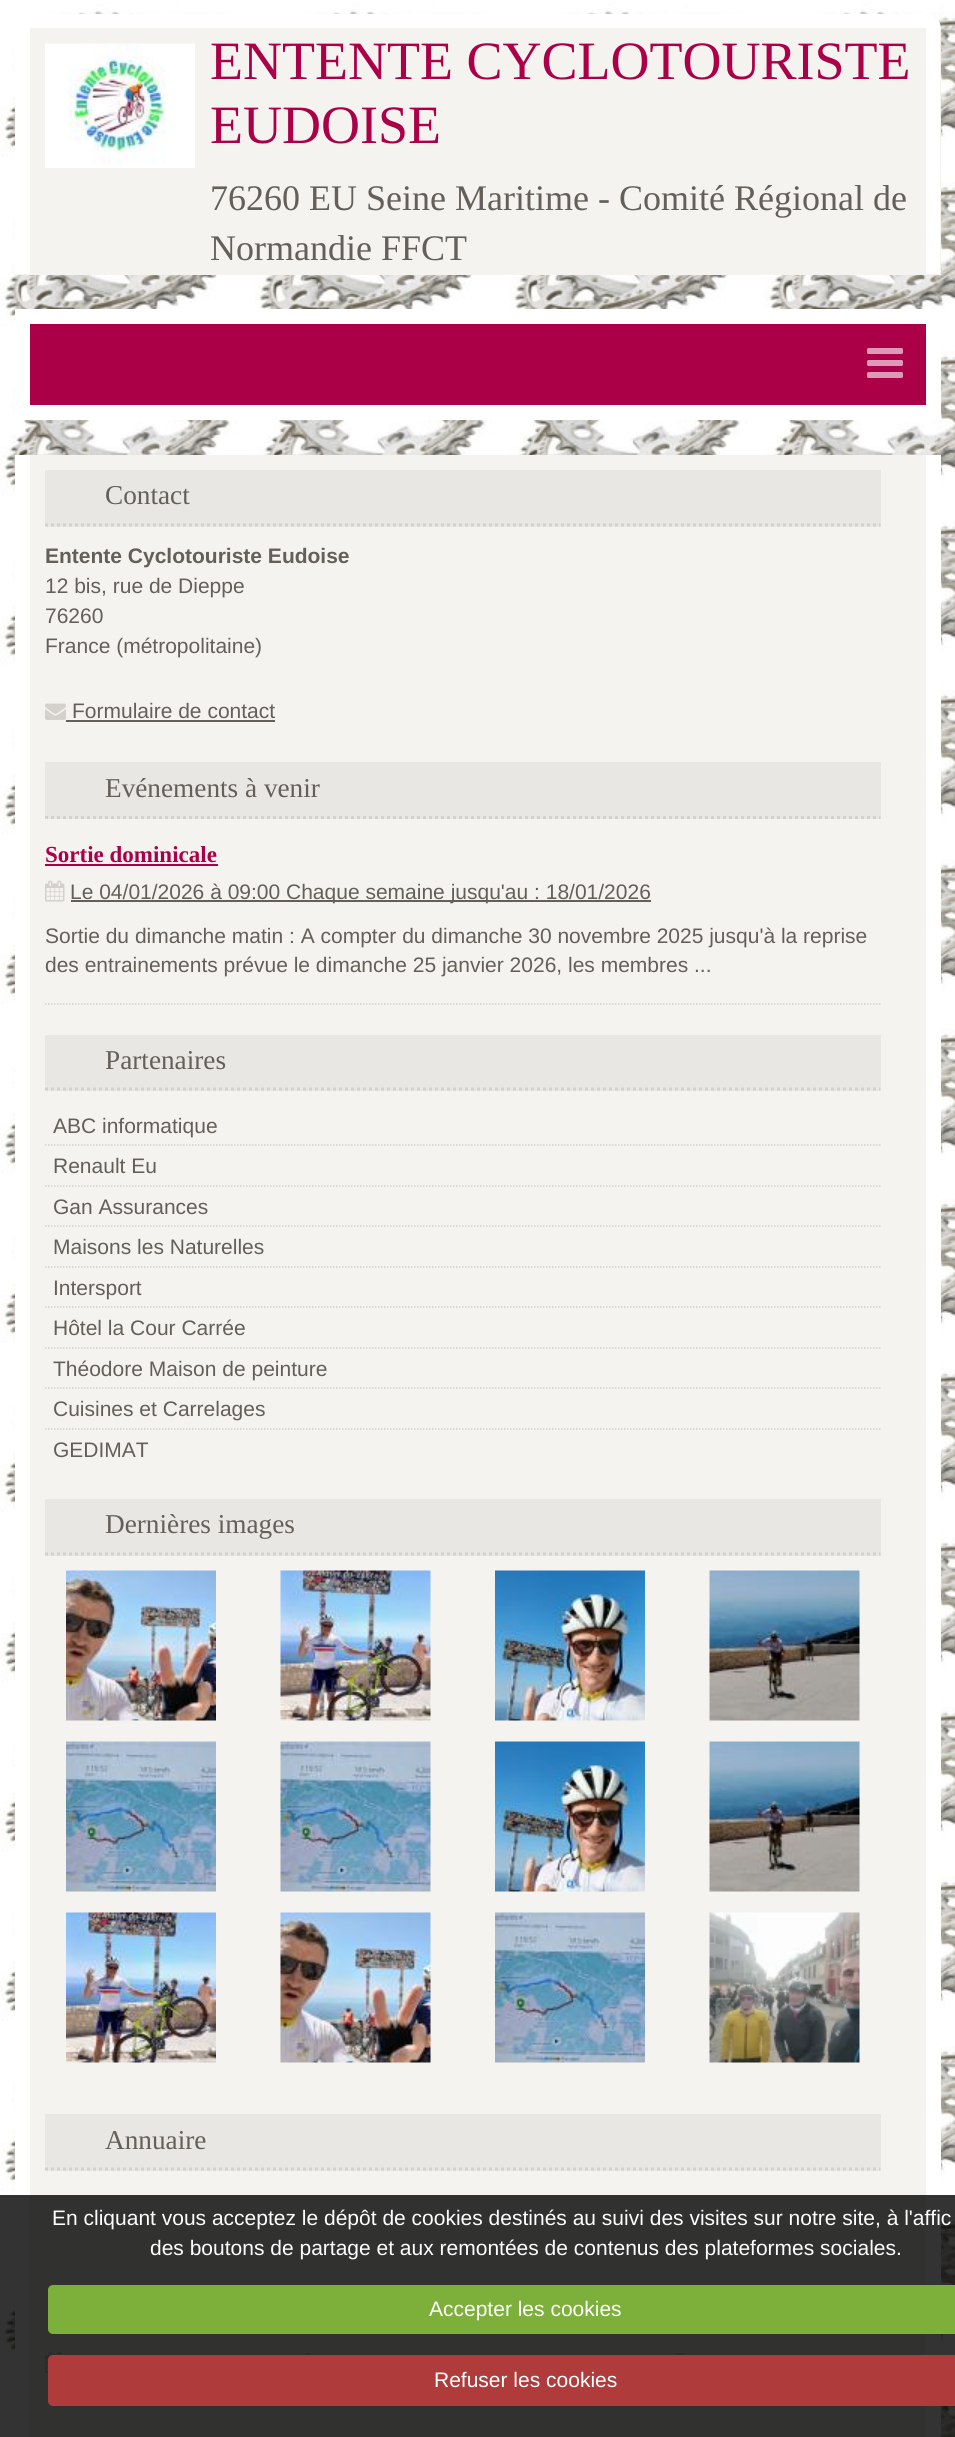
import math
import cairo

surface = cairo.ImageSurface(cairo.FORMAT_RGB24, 955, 2437)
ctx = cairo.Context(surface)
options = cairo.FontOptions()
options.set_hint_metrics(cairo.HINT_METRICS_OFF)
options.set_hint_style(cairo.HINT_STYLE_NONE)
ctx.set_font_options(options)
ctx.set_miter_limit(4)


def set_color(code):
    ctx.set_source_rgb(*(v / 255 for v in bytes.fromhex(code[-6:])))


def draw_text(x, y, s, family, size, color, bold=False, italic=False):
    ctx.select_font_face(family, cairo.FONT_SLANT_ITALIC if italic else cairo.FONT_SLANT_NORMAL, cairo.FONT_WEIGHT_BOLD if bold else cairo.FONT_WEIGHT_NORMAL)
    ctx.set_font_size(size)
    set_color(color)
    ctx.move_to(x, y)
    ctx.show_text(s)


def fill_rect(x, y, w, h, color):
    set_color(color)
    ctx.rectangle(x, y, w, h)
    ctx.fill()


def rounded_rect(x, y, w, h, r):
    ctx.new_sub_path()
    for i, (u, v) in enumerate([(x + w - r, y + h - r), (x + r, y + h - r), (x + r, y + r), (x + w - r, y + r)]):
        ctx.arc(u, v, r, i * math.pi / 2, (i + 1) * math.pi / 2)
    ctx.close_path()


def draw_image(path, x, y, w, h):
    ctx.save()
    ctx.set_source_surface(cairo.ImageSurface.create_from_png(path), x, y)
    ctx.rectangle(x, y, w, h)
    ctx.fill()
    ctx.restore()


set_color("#ffffff")
ctx.paint()
draw_image("assets/img1.png", 0, 0, 955, 2437)
set_color("#f4f3f0")
ctx.new_path()
ctx.move_to(30, 14)
ctx.line_to(926, 14)
ctx.curve_to(934.5, 14, 941, 20.5, 941, 29)
ctx.line_to(941, 275)
ctx.line_to(15, 275)
ctx.line_to(15, 29)
ctx.curve_to(15, 20.5, 21.5, 14, 30, 14)
ctx.close_path()
ctx.fill()
set_color("#ffffff")
ctx.set_fill_rule(cairo.FILL_RULE_EVEN_ODD)
ctx.new_path()
ctx.move_to(30, 14)
ctx.line_to(926, 14)
ctx.curve_to(934, 14, 940, 20, 940, 28)
ctx.line_to(940, 274)
ctx.line_to(15, 274)
ctx.line_to(15, 28)
ctx.curve_to(15, 20, 22, 14, 30, 14)
ctx.close_path()
ctx.move_to(30, 28)
ctx.line_to(926, 28)
ctx.line_to(926, 274)
ctx.line_to(30, 274)
ctx.close_path()
ctx.fill()
draw_image("assets/img2.png", 45, 43, 150, 125)
draw_text(210, 79, "ENTENTE CYCLOTOURISTE", "Liberation Serif", 54, "#ab0047")
draw_text(210, 143, "EUDOISE", "Liberation Serif", 54, "#ab0047")
draw_text(210, 210, "76260 EU Seine Maritime - Comité Régional de", "Liberation Serif", 36, "#645f58")
draw_text(210, 260, "Normandie FFCT", "Liberation Serif", 36, "#645f58")
set_color("#ab0047")
ctx.rectangle(22.5, 316.5, 911, 96)
ctx.fill_preserve()
set_color("#ffffff")
ctx.set_line_width(15)
ctx.stroke()
draw_image("assets/img3.png", 867, 348, 36, 30)
fill_rect(30, 455, 896, 1982, "#f4f3f0")
fill_rect(926, 455, 15, 1982, "#ffffff")
fill_rect(15, 455, 15, 1982, "#ffffff")
fill_rect(45, 470, 836, 57, "#e8e7e4")
ctx.new_path()
ctx.move_to(45, 525)
ctx.line_to(880.5, 525)
set_color("#d4d1cd")
ctx.set_line_width(3)
ctx.set_dash([3, 3])
ctx.stroke()
draw_text(105, 504, "Contact", "Liberation Serif", 27.25, "#645f58")
draw_text(45, 563, "Entente Cyclotouriste Eudoise", "Liberation Sans", 21, "#645f58", bold=True)
draw_text(45, 593, "12 bis, rue de Dieppe", "Liberation Sans", 21, "#645f58")
draw_text(45, 623, "76260", "Liberation Sans", 21, "#645f58")
draw_text(45, 653, "France (métropolitaine)", "Liberation Sans", 21, "#645f58")
draw_image("assets/img4.png", 45, 703, 21, 17)
draw_text(72, 718, "Formulaire de contact", "Liberation Sans", 21, "#645f58")
fill_rect(66, 720, 209, 2, "#645f58")
fill_rect(45, 762, 836, 57, "#e8e7e4")
ctx.new_path()
ctx.move_to(45, 817.5)
ctx.line_to(880.5, 817.5)
set_color("#d4d1cd")
ctx.stroke()
draw_text(105, 797, "Evénements à venir", "Liberation Serif", 27.25, "#645f58")
ctx.new_path()
ctx.move_to(45, 1004)
ctx.line_to(880.5, 1004)
set_color("#d4d1cd")
ctx.set_line_width(1.5)
ctx.set_dash([1.5, 1.5])
ctx.stroke()
draw_text(45, 862, "Sortie dominicale", "Liberation Serif", 23, "#ab0047", bold=True)
fill_rect(45, 864, 173, 2, "#ab0047")
draw_image("assets/img5.png", 45, 880, 20, 22)
fill_rect(71, 900, 580, 2, "#645f58")
draw_text(70, 899, "Le 04/01/2026 à 09:00 Chaque semaine jusqu'au : 18/01/2026", "Liberation Sans", 21, "#645f58")
draw_text(45, 943, "Sortie du dimanche matin : A compter du dimanche 30 novembre 2025 jusqu'à la reprise", "Liberation Sans", 21, "#645f58")
draw_text(45, 972, "des entrainements prévue le dimanche 25 janvier 2026, les membres ...", "Liberation Sans", 21, "#645f58")
fill_rect(45, 1035, 836, 56, "#e8e7e4")
ctx.new_path()
ctx.move_to(45, 1089)
ctx.line_to(880.5, 1089)
set_color("#d4d1cd")
ctx.set_line_width(3)
ctx.set_dash([3, 3])
ctx.stroke()
draw_text(105, 1069, "Partenaires", "Liberation Serif", 27.25, "#645f58")
ctx.new_path()
ctx.move_to(45, 1145)
ctx.line_to(880.5, 1145)
set_color("#d4d1cd")
ctx.set_line_width(1.5)
ctx.set_dash([1.5, 1.5])
ctx.stroke()
draw_text(53, 1133, "ABC informatique", "Liberation Sans", 21, "#645f58")
ctx.new_path()
ctx.move_to(45, 1186)
ctx.line_to(880.5, 1186)
set_color("#d4d1cd")
ctx.stroke()
draw_text(53, 1173, "Renault Eu", "Liberation Sans", 21, "#645f58")
ctx.new_path()
ctx.move_to(45, 1226)
ctx.line_to(880.5, 1226)
set_color("#d4d1cd")
ctx.stroke()
draw_text(53, 1214, "Gan Assurances", "Liberation Sans", 21, "#645f58")
ctx.new_path()
ctx.move_to(45, 1267)
ctx.line_to(880.5, 1267)
set_color("#d4d1cd")
ctx.stroke()
draw_text(53, 1254, "Maisons les Naturelles", "Liberation Sans", 21, "#645f58")
ctx.new_path()
ctx.move_to(45, 1307)
ctx.line_to(880.5, 1307)
set_color("#d4d1cd")
ctx.stroke()
draw_text(53, 1295, "Intersport", "Liberation Sans", 21, "#645f58")
ctx.new_path()
ctx.move_to(45, 1348)
ctx.line_to(880.5, 1348)
set_color("#d4d1cd")
ctx.stroke()
draw_text(53, 1335, "Hôtel la Cour Carrée", "Liberation Sans", 21, "#645f58")
ctx.new_path()
ctx.move_to(45, 1388)
ctx.line_to(880.5, 1388)
set_color("#d4d1cd")
ctx.stroke()
draw_text(53, 1376, "Théodore Maison de peinture", "Liberation Sans", 21, "#645f58")
ctx.new_path()
ctx.move_to(45, 1429)
ctx.line_to(880.5, 1429)
set_color("#d4d1cd")
ctx.stroke()
draw_text(53, 1416, "Cuisines et Carrelages", "Liberation Sans", 21, "#645f58")
draw_text(53, 1457, "GEDIMAT", "Liberation Sans", 21, "#645f58")
fill_rect(45, 1499, 836, 57, "#e8e7e4")
ctx.new_path()
ctx.move_to(45, 1554)
ctx.line_to(880.5, 1554)
set_color("#d4d1cd")
ctx.set_line_width(3)
ctx.set_dash([3, 3])
ctx.stroke()
draw_text(105, 1533, "Dernières images", "Liberation Serif", 27.25, "#645f58")
draw_image("assets/img6.png", 66, 1570, 150, 151)
draw_image("assets/img7.png", 280, 1570, 151, 151)
draw_image("assets/img8.png", 495, 1570, 150, 151)
draw_image("assets/img9.png", 709, 1570, 151, 151)
draw_image("assets/img10.png", 66, 1741, 150, 151)
draw_image("assets/img11.png", 280, 1741, 151, 151)
draw_image("assets/img8.png", 495, 1741, 150, 151)
draw_image("assets/img9.png", 709, 1741, 151, 151)
draw_image("assets/img12.png", 66, 1912, 150, 151)
draw_image("assets/img13.png", 280, 1912, 151, 151)
draw_image("assets/img14.png", 495, 1912, 150, 151)
draw_image("assets/img15.png", 709, 1912, 151, 151)
fill_rect(45, 2114, 836, 57, "#e8e7e4")
ctx.new_path()
ctx.move_to(45, 2169)
ctx.line_to(880.5, 2169)
set_color("#d4d1cd")
ctx.stroke()
draw_text(105, 2149, "Annuaire", "Liberation Serif", 27.25, "#645f58")
draw_image("assets/img16.png", 45, 2352, 17, 21)
draw_image("assets/img17.png", 303, 2353, 9, 2)
draw_image("assets/img18.png", 675, 2353, 10, 2)
ctx.set_source_rgba(0, 0, 0, 0.8)
ctx.rectangle(0, 2195, 955, 242)
ctx.fill()
draw_text(52, 2225, "En cliquant vous acceptez le dépôt de cookies destinés au suivi des visites sur notre site, à l'affic", "Liberation Sans", 21, "#ffffff")
draw_text(150, 2255, "des boutons de partage et aux remontées de contenus des plateformes sociales.", "Liberation Sans", 21, "#ffffff")
set_color("#7daf3b")
rounded_rect(48, 2285, 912, 49, 5)
ctx.fill()
draw_text(429, 2316, "Accepter les cookies", "Liberation Sans", 21, "#ffffff")
set_color("#af3b3b")
rounded_rect(48, 2355, 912, 51, 5)
ctx.fill()
draw_text(434, 2387, "Refuser les cookies", "Liberation Sans", 21, "#ffffff")
surface.write_to_png("output.png")
